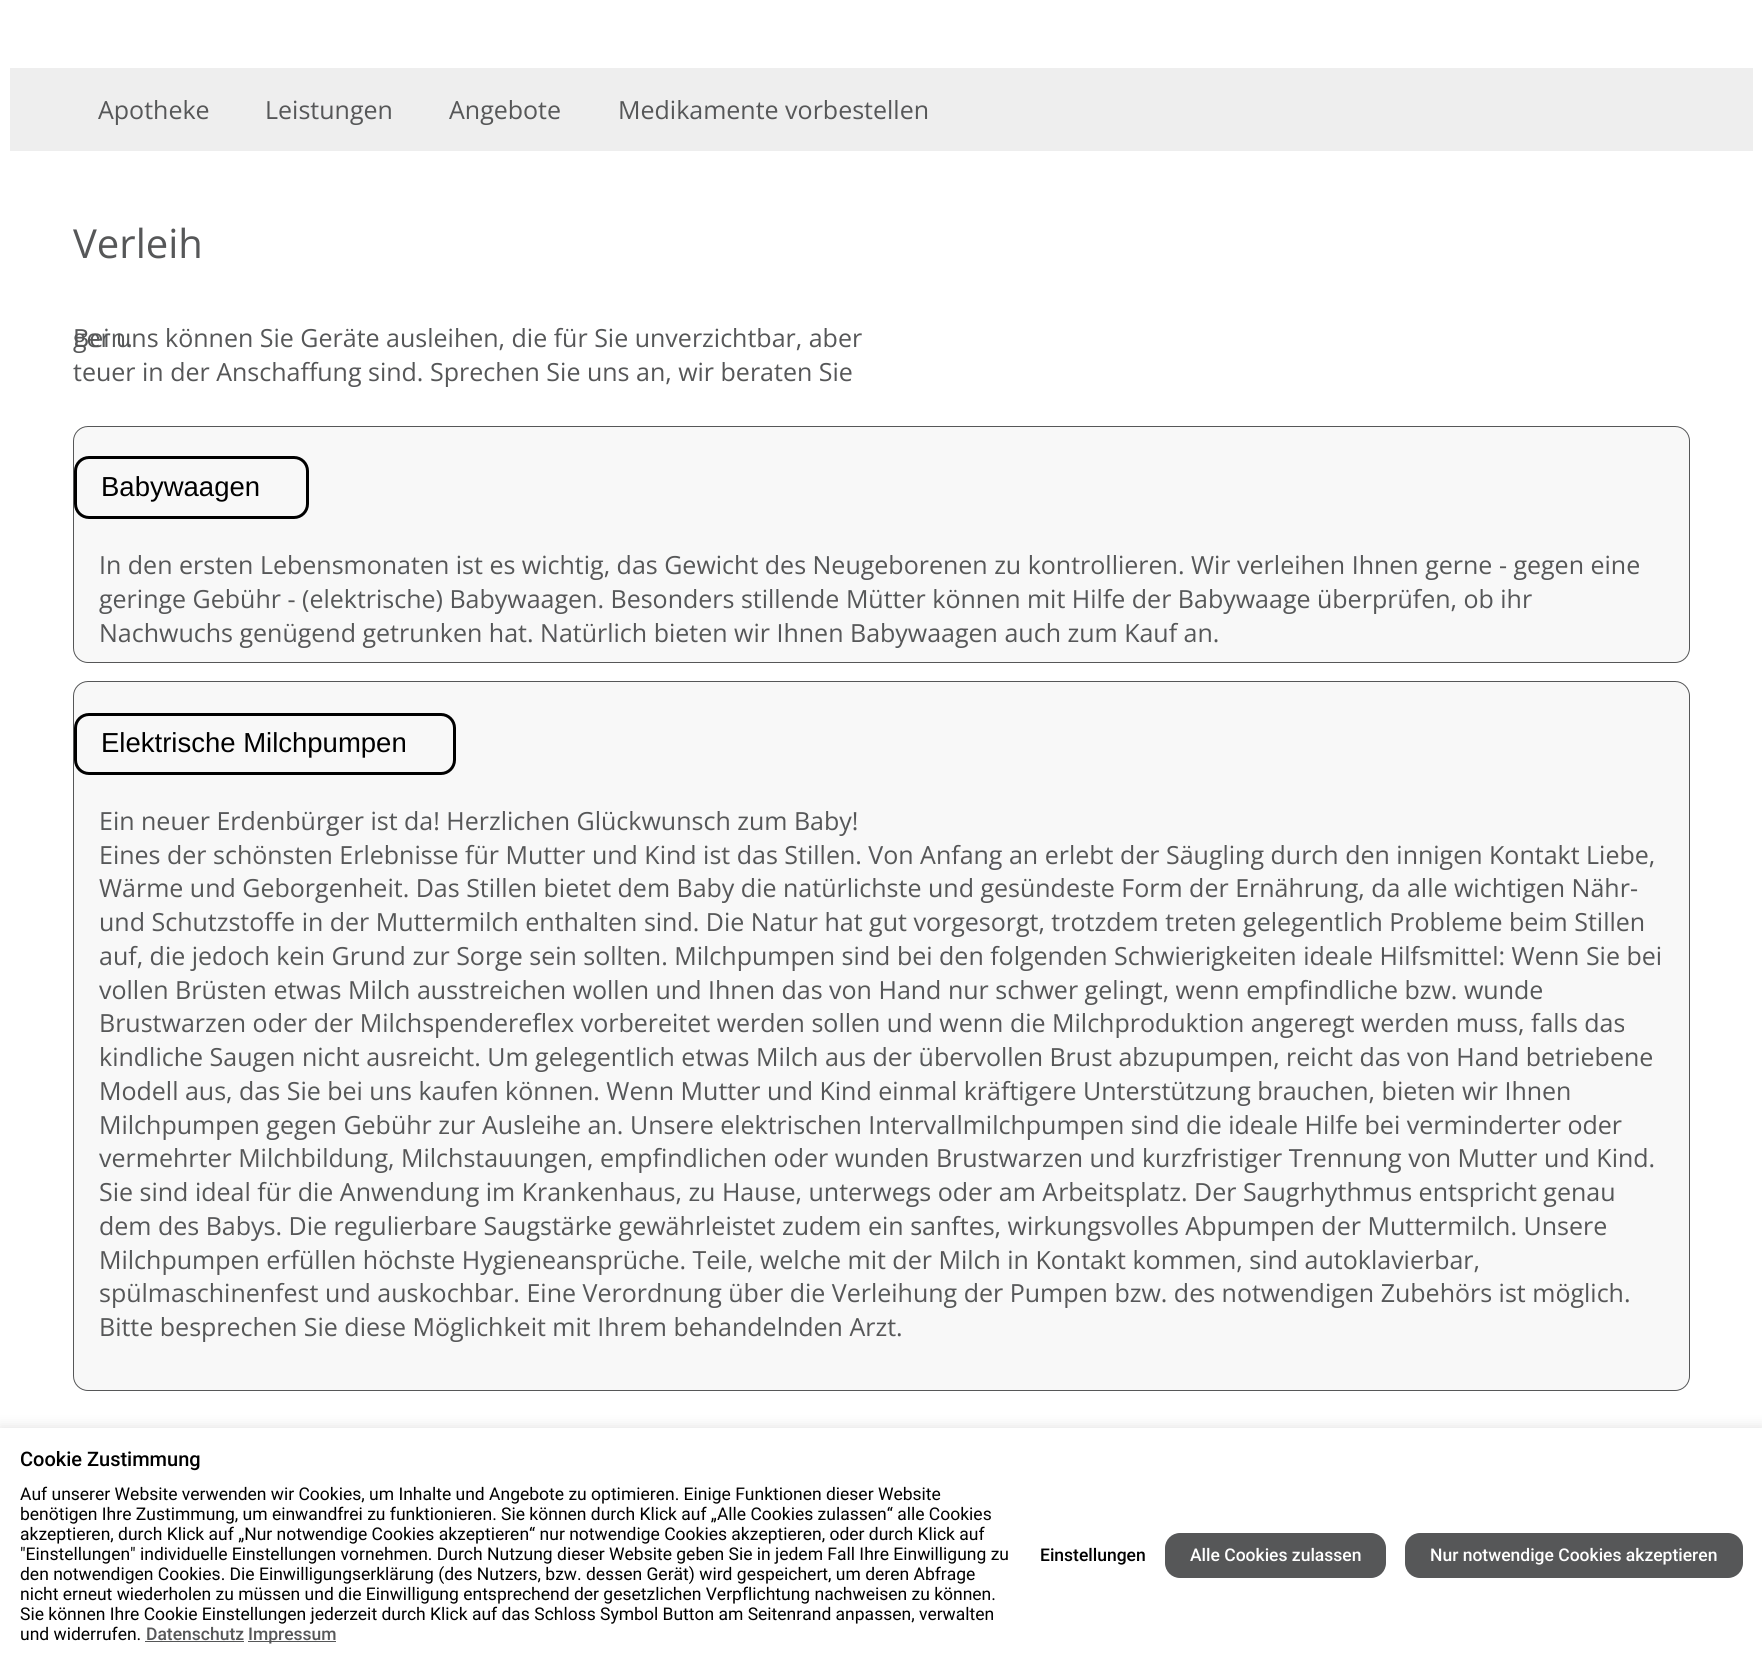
import math
import cairo

surface = cairo.ImageSurface(cairo.FORMAT_RGB24, 1762, 1663)
ctx = cairo.Context(surface)
options = cairo.FontOptions()
options.set_hint_metrics(cairo.HINT_METRICS_OFF)
options.set_hint_style(cairo.HINT_STYLE_NONE)
ctx.set_font_options(options)
ctx.set_miter_limit(4)


def set_color(code):
    ctx.set_source_rgb(*(v / 255 for v in bytes.fromhex(code[-6:])))


def draw_text(x, y, s, family, size, color, bold=False, italic=False):
    ctx.select_font_face(family, cairo.FONT_SLANT_ITALIC if italic else cairo.FONT_SLANT_NORMAL, cairo.FONT_WEIGHT_BOLD if bold else cairo.FONT_WEIGHT_NORMAL)
    ctx.set_font_size(size)
    set_color(color)
    ctx.move_to(x, y)
    ctx.show_text(s)


def fill_rect(x, y, w, h, color):
    set_color(color)
    ctx.rectangle(x, y, w, h)
    ctx.fill()


def rounded_rect(x, y, w, h, r):
    ctx.new_sub_path()
    for i, (u, v) in enumerate([(x + w - r, y + h - r), (x + r, y + h - r), (x + r, y + r), (x + w - r, y + r)]):
        ctx.arc(u, v, r, i * math.pi / 2, (i + 1) * math.pi / 2)
    ctx.close_path()


def draw_shadow(x, y, w, h, r, blur, alpha):
    ctx.push_group_with_content(cairo.CONTENT_ALPHA)
    ctx.set_operator(cairo.OPERATOR_SOURCE)
    for i in range(15, -16, -2):
        e = blur * i / 6
        if min(w, h) + 2 * e > 0:
            ctx.set_source_rgba(0, 0, 0, alpha * math.erfc((i - 1) / 8.5) / 2)
            rounded_rect(x - e, y - e, w + 2 * e, h + 2 * e, max(0, min(r + e + blur * .6, min(w, h) / 2 + e)))
            ctx.fill()
    ctx.mask(ctx.pop_group())


set_color("#ffffff")
ctx.paint()
fill_rect(10, 68, 1743, 83, "#eeeeee")
draw_text(98, 119, "Apotheke", "Open Sans", 25, "#565758")
draw_text(265, 119, "Leistungen", "Open Sans", 25, "#565758")
draw_text(449, 119, "Angebote", "Open Sans", 25, "#565758")
draw_text(618, 119, "Medikamente vorbestellen", "Open Sans", 25, "#565758")
draw_text(73, 258, "Verleih", "Open Sans", 40, "#565758")
draw_text(73, 347, "Bei uns können Sie Geräte ausleihen, die für Sie unverzichtbar, aber", "Open Sans", 25, "#565758")
draw_text(73, 347, "gern.", "Open Sans", 25, "#565758")
draw_text(73, 381, "teuer in der Anschaffung sind. Sprechen Sie uns an, wir beraten Sie", "Open Sans", 25, "#565758")
set_color("#f8f8f8")
rounded_rect(73.5, 426.5, 1616, 236, 14.5)
ctx.fill_preserve()
set_color("#565758")
ctx.set_line_width(1)
ctx.stroke()
rounded_rect(75.5, 457.5, 232, 60, 13.5)
set_color("#000000")
ctx.set_line_width(3)
ctx.stroke()
draw_text(101, 496, "Babywaagen", "Liberation Sans", 27.5, "#000000")
draw_text(99, 574, "In den ersten Lebensmonaten ist es wichtig, das Gewicht des Neugeborenen zu kontrollieren. Wir verleihen Ihnen gerne - gegen eine", "Open Sans", 25, "#565758")
draw_text(99, 608, "geringe Gebühr - (elektrische) Babywaagen. Besonders stillende Mütter können mit Hilfe der Babywaage überprüfen, ob ihr", "Open Sans", 25, "#565758")
draw_text(99, 642, "Nachwuchs genügend getrunken hat. Natürlich bieten wir Ihnen Babywaagen auch zum Kauf an.", "Open Sans", 25, "#565758")
set_color("#f8f8f8")
rounded_rect(73.5, 681.5, 1616, 709, 14.5)
ctx.fill_preserve()
set_color("#565758")
ctx.set_line_width(1)
ctx.stroke()
rounded_rect(75.5, 714.5, 379, 59, 13.5)
set_color("#000000")
ctx.set_line_width(3)
ctx.stroke()
draw_text(101, 752, "Elektrische Milchpumpen", "Liberation Sans", 27.5, "#000000")
draw_text(99, 830, "Ein neuer Erdenbürger ist da! Herzlichen Glückwunsch zum Baby!", "Open Sans", 25, "#565758")
draw_text(99, 864, "Eines der schönsten Erlebnisse für Mutter und Kind ist das Stillen. Von Anfang an erlebt der Säugling durch den innigen Kontakt Liebe,", "Open Sans", 25, "#565758")
draw_text(99, 897, "Wärme und Geborgenheit. Das Stillen bietet dem Baby die natürlichste und gesündeste Form der Ernährung, da alle wichtigen Nähr-", "Open Sans", 25, "#565758")
draw_text(99, 931, "und Schutzstoffe in der Muttermilch enthalten sind. Die Natur hat gut vorgesorgt, trotzdem treten gelegentlich Probleme beim Stillen", "Open Sans", 25, "#565758")
draw_text(99, 965, "auf, die jedoch kein Grund zur Sorge sein sollten. Milchpumpen sind bei den folgenden Schwierigkeiten ideale Hilfsmittel: Wenn Sie bei", "Open Sans", 25, "#565758")
draw_text(99, 999, "vollen Brüsten etwas Milch ausstreichen wollen und Ihnen das von Hand nur schwer gelingt, wenn empfindliche bzw. wunde", "Open Sans", 25, "#565758")
draw_text(99, 1032, "Brustwarzen oder der Milchspendereflex vorbereitet werden sollen und wenn die Milchproduktion angeregt werden muss, falls das", "Open Sans", 25, "#565758")
draw_text(99, 1066, "kindliche Saugen nicht ausreicht. Um gelegentlich etwas Milch aus der übervollen Brust abzupumpen, reicht das von Hand betriebene", "Open Sans", 25, "#565758")
draw_text(99, 1100, "Modell aus, das Sie bei uns kaufen können. Wenn Mutter und Kind einmal kräftigere Unterstützung brauchen, bieten wir Ihnen", "Open Sans", 25, "#565758")
draw_text(99, 1134, "Milchpumpen gegen Gebühr zur Ausleihe an. Unsere elektrischen Intervallmilchpumpen sind die ideale Hilfe bei verminderter oder", "Open Sans", 25, "#565758")
draw_text(99, 1167, "vermehrter Milchbildung, Milchstauungen, empfindlichen oder wunden Brustwarzen und kurzfristiger Trennung von Mutter und Kind.", "Open Sans", 25, "#565758")
draw_text(99, 1201, "Sie sind ideal für die Anwendung im Krankenhaus, zu Hause, unterwegs oder am Arbeitsplatz. Der Saugrhythmus entspricht genau", "Open Sans", 25, "#565758")
draw_text(99, 1235, "dem des Babys. Die regulierbare Saugstärke gewährleistet zudem ein sanftes, wirkungsvolles Abpumpen der Muttermilch. Unsere", "Open Sans", 25, "#565758")
draw_text(99, 1269, "Milchpumpen erfüllen höchste Hygieneansprüche. Teile, welche mit der Milch in Kontakt kommen, sind autoklavierbar,", "Open Sans", 25, "#565758")
draw_text(99, 1302, "spülmaschinenfest und auskochbar. Eine Verordnung über die Verleihung der Pumpen bzw. des notwendigen Zubehörs ist möglich.", "Open Sans", 25, "#565758")
draw_text(99, 1336, "Bitte besprechen Sie diese Möglichkeit mit Ihrem behandelnden Arzt.", "Open Sans", 25, "#565758")
set_color("#acabab")
draw_shadow(0, 1426, 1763, 237, 0, 6, 0.3)
fill_rect(0, 1428, 1762, 235, "#ffffff")
draw_text(20, 1466, "Cookie Zustimmung", "Roboto Medium", 20, "#000000")
draw_text(20, 1500, "Auf unserer Website verwenden wir Cookies, um Inhalte und Angebote zu optimieren. Einige Funktionen dieser Website", "Roboto", 17.5, "#000000")
draw_text(20, 1520, "benötigen Ihre Zustimmung, um einwandfrei zu funktionieren. Sie können durch Klick auf „Alle Cookies zulassen“ alle Cookies", "Roboto", 17.5, "#000000")
draw_text(20, 1540, "akzeptieren, durch Klick auf „Nur notwendige Cookies akzeptieren“ nur notwendige Cookies akzeptieren, oder durch Klick auf", "Roboto", 17.5, "#000000")
draw_text(20, 1560, "\"Einstellungen\" individuelle Einstellungen vornehmen. Durch Nutzung dieser Website geben Sie in jedem Fall Ihre Einwilligung zu", "Roboto", 17.5, "#000000")
draw_text(20, 1580, "den notwendigen Cookies. Die Einwilligungserklärung (des Nutzers, bzw. dessen Gerät) wird gespeichert, um deren Abfrage", "Roboto", 17.5, "#000000")
draw_text(20, 1600, "nicht erneut wiederholen zu müssen und die Einwilligung entsprechend der gesetzlichen Verpflichtung nachweisen zu können.", "Roboto", 17.5, "#000000")
draw_text(20, 1620, "Sie können Ihre Cookie Einstellungen jederzeit durch Klick auf das Schloss Symbol Button am Seitenrand anpassen, verwalten", "Roboto", 17.5, "#000000")
draw_text(20, 1640, "und widerrufen.", "Roboto", 17.5, "#000000")
draw_text(146, 1640, "Datenschutz", "Roboto Medium", 17.5, "#565758")
fill_rect(145, 1641, 99, 1, "#565758")
fill_rect(248, 1641, 88, 1, "#565758")
draw_text(248, 1640, "Impressum", "Roboto Medium", 17.5, "#565758")
draw_text(1040, 1561, "Einstellungen", "Roboto Medium", 17.5, "#000000")
set_color("#565758")
rounded_rect(1165, 1533, 221, 45, 15)
ctx.fill()
draw_text(1190, 1561, "Alle Cookies zulassen", "Roboto Medium", 17.5, "#ffffff")
set_color("#565758")
rounded_rect(1405, 1533, 338, 45, 15)
ctx.fill()
draw_text(1430, 1561, "Nur notwendige Cookies akzeptieren", "Roboto Medium", 17.5, "#ffffff")
surface.write_to_png("output.png")
